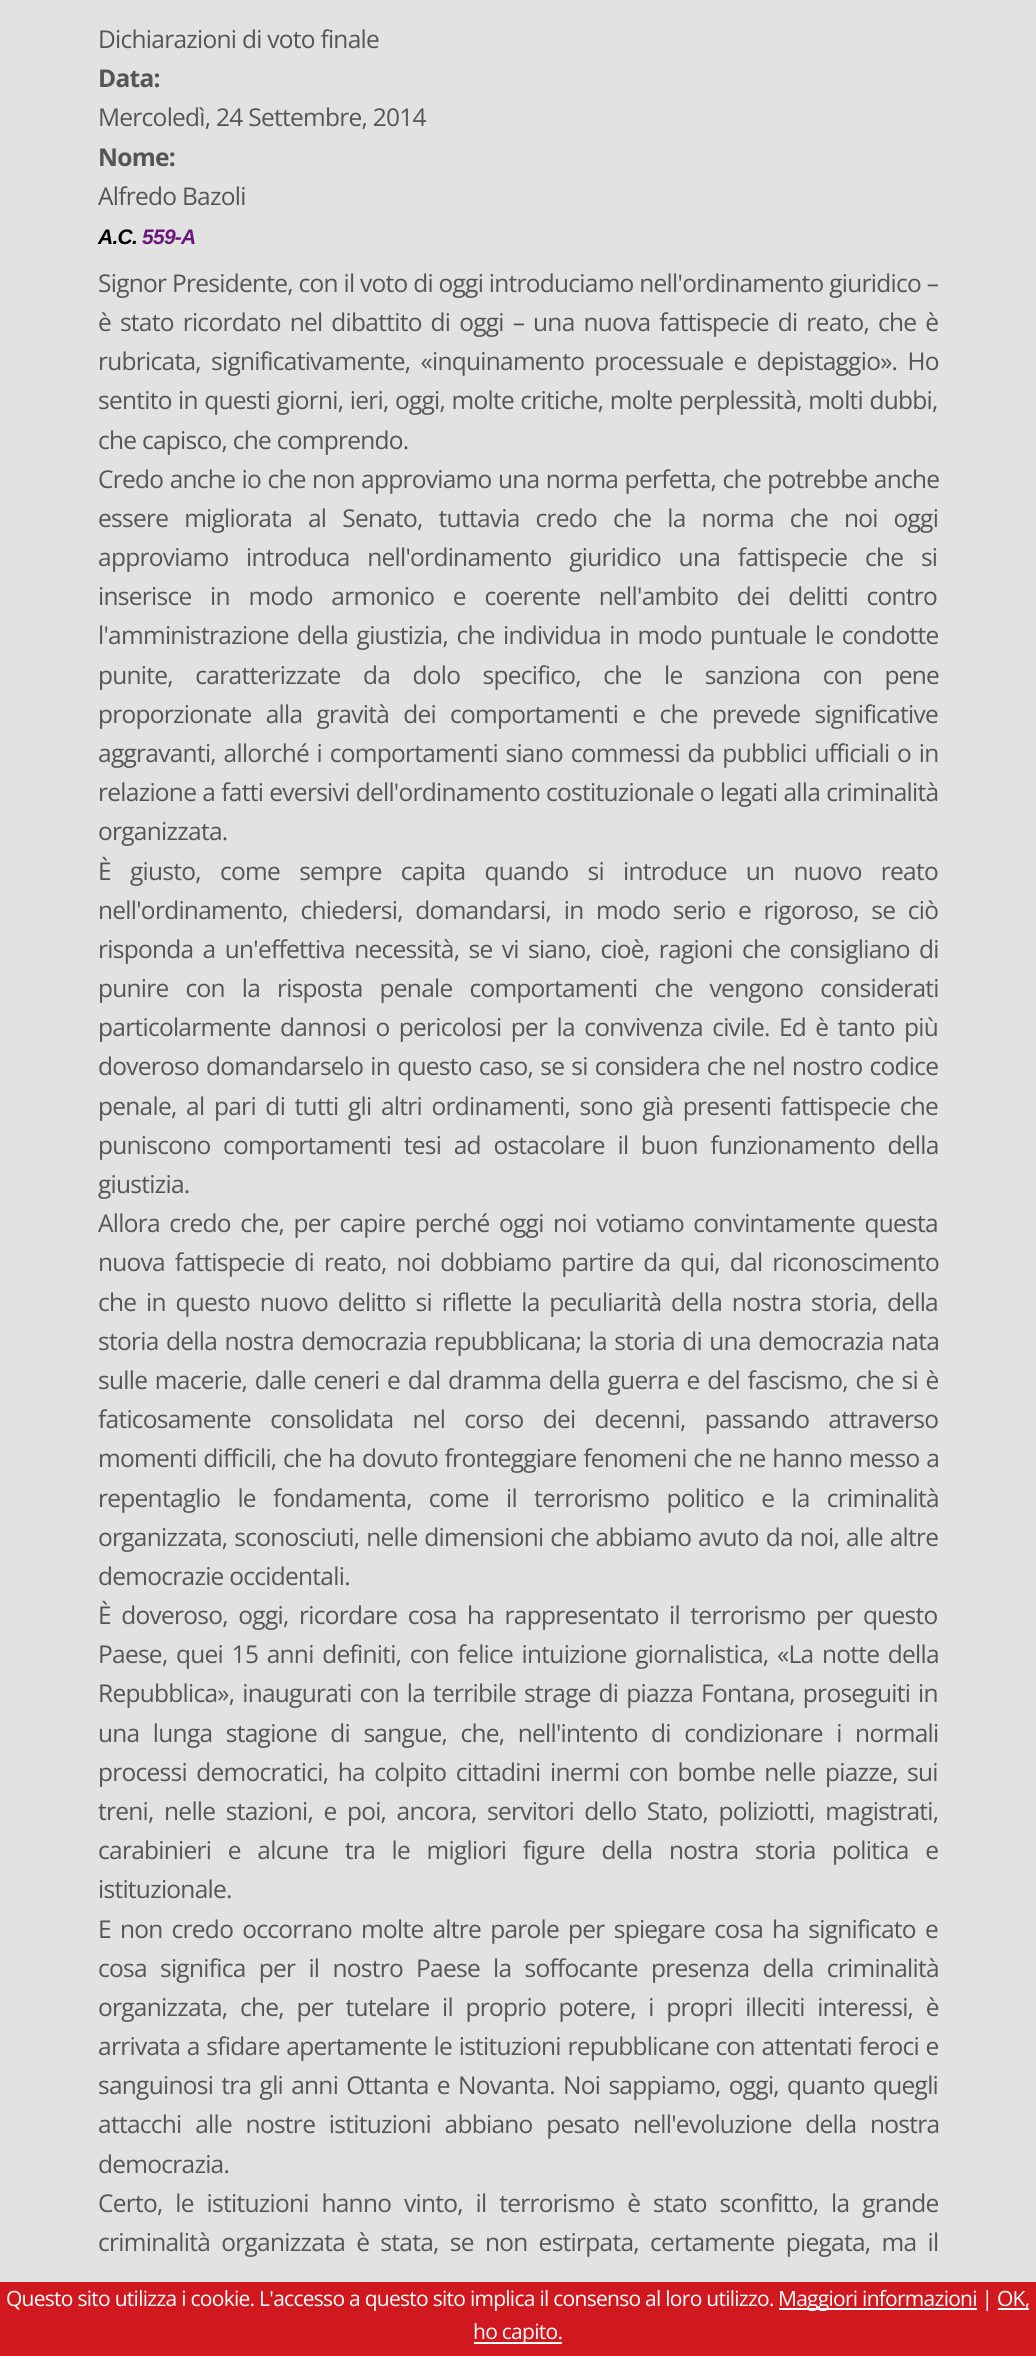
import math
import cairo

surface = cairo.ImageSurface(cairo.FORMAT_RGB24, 1036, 2356)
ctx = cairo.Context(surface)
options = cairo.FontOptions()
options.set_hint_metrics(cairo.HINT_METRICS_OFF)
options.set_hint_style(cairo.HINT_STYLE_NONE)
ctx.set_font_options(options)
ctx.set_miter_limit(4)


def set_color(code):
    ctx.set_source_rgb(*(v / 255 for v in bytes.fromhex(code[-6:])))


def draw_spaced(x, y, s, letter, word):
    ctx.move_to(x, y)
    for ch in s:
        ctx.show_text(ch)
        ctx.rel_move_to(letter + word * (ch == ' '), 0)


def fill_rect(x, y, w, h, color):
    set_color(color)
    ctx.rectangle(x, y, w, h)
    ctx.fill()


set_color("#e2e2e2")
ctx.paint()
ctx.select_font_face("Open Sans")
ctx.set_font_size(24.5)
set_color("#555555")
draw_spaced(98, 48, "Dichiarazioni di voto finale", -0.73, 0)
ctx.select_font_face("Open Sans", cairo.FONT_SLANT_NORMAL, cairo.FONT_WEIGHT_BOLD)
draw_spaced(98, 87, "Data:", -0.73, 0)
ctx.select_font_face("Open Sans")
draw_spaced(98, 126, "Mercoledì, 24 Settembre, 2014", -0.73, 0)
ctx.select_font_face("Open Sans", cairo.FONT_SLANT_NORMAL, cairo.FONT_WEIGHT_BOLD)
draw_spaced(98, 166, "Nome:", -0.73, 0)
ctx.select_font_face("Open Sans")
draw_spaced(98, 205, "Alfredo Bazoli", -0.73, 0)
ctx.select_font_face("Liberation Sans", cairo.FONT_SLANT_ITALIC, cairo.FONT_WEIGHT_BOLD)
ctx.set_font_size(21)
set_color("#000000")
draw_spaced(98, 244, "A.C.", -0.73, 0)
set_color("#69177b")
draw_spaced(142, 244, "559-A", -0.73, 0)
ctx.select_font_face("Open Sans")
ctx.set_font_size(24.5)
set_color("#555555")
draw_spaced(98, 292, "Signor Presidente, con il voto di oggi introduciamo nell'ordinamento giuridico –", -0.73, 0)
draw_spaced(98, 331, "è stato ricordato nel dibattito di oggi – una nuova fattispecie di reato, che è", -0.73, 3.25)
draw_spaced(98, 370, "rubricata, significativamente, «inquinamento processuale e depistaggio». Ho", -0.73, 4.5)
draw_spaced(98, 409, "sentito in questi giorni, ieri, oggi, molte critiche, molte perplessità, molti dubbi,", -0.73, 0.75)
draw_spaced(98, 449, "che capisco, che comprendo.", -0.73, 0)
draw_spaced(98, 488, "Credo anche io che non approviamo una norma perfetta, che potrebbe anche", -0.73, 0.75)
draw_spaced(98, 527, "essere migliorata al Senato, tuttavia credo che la norma che noi oggi", -0.73, 10.25)
draw_spaced(98, 566, "approviamo introduca nell'ordinamento giuridico una fattispecie che si", -0.73, 12)
draw_spaced(98, 605, "inserisce in modo armonico e coerente nell'ambito dei delitti contro", -0.73, 13)
draw_spaced(98, 644, "l'amministrazione della giustizia, che individua in modo puntuale le condotte", -0.73, 2.75)
draw_spaced(98, 684, "punite, caratterizzate da dolo specifico, che le sanziona con pene", -0.73, 16.75)
draw_spaced(98, 723, "proporzionate alla gravità dei comportamenti e che prevede significative", -0.73, 8.5)
draw_spaced(98, 762, "aggravanti, allorché i comportamenti siano commessi da pubblici ufficiali o in", -0.73, 2)
draw_spaced(98, 801, "relazione a fatti eversivi dell'ordinamento costituzionale o legati alla criminalità", -0.73, 0.5)
draw_spaced(98, 840, "organizzata.", -0.73, 0)
draw_spaced(98, 880, "È giusto, come sempre capita quando si introduce un nuovo reato", -0.73, 13.5)
draw_spaced(98, 919, "nell'ordinamento, chiedersi, domandarsi, in modo serio e rigoroso, se ciò", -0.73, 6.9)
draw_spaced(98, 958, "risponda a un'effettiva necessità, se vi siano, cioè, ragioni che consigliano di", -0.73, 3.6)
draw_spaced(98, 997, "punire con la risposta penale comportamenti che vengono considerati", -0.73, 11.25)
draw_spaced(98, 1036, "particolarmente dannosi o pericolosi per la convivenza civile. Ed è tanto più", -0.73, 3.6)
draw_spaced(98, 1075, "doveroso domandarselo in questo caso, se si considera che nel nostro codice", -0.73, 1.4)
draw_spaced(98, 1115, "penale, al pari di tutti gli altri ordinamenti, sono già presenti fattispecie che", -0.73, 3.9)
draw_spaced(98, 1154, "puniscono comportamenti tesi ad ostacolare il buon funzionamento della", -0.73, 6.9)
draw_spaced(98, 1193, "giustizia.", -0.73, 0)
draw_spaced(98, 1232, "Allora credo che, per capire perché oggi noi votiamo convintamente questa", -0.73, 3.75)
draw_spaced(98, 1271, "nuova fattispecie di reato, noi dobbiamo partire da qui, dal riconoscimento", -0.73, 4.25)
draw_spaced(98, 1311, "che in questo nuovo delitto si riflette la peculiarità della nostra storia, della", -0.73, 4.1)
draw_spaced(98, 1350, "storia della nostra democrazia repubblicana; la storia di una democrazia nata", -0.73, 1.75)
draw_spaced(98, 1389, "sulle macerie, dalle ceneri e dal dramma della guerra e del fascismo, che si è", -0.73, 2)
draw_spaced(98, 1428, "faticosamente consolidata nel corso dei decenni, passando attraverso", -0.73, 13.5)
draw_spaced(98, 1467, "momenti difficili, che ha dovuto fronteggiare fenomeni che ne hanno messo a", -0.73, 1)
draw_spaced(98, 1507, "repentaglio le fondamenta, come il terrorismo politico e la criminalità", -0.73, 11.5)
draw_spaced(98, 1546, "organizzata, sconosciuti, nelle dimensioni che abbiamo avuto da noi, alle altre", -0.73, 1.25)
draw_spaced(98, 1585, "democrazie occidentali.", -0.73, 0)
draw_spaced(98, 1624, "È doveroso, oggi, ricordare cosa ha rappresentato il terrorismo per questo", -0.73, 4.75)
draw_spaced(98, 1663, "Paese, quei 15 anni definiti, con felice intuizione giornalistica, «La notte della", -0.73, 2.9)
draw_spaced(98, 1702, "Repubblica», inaugurati con la terribile strage di piazza Fontana, proseguiti in", -0.73, 2.25)
draw_spaced(98, 1742, "una lunga stagione di sangue, che, nell'intento di condizionare i normali", -0.73, 7.75)
draw_spaced(98, 1781, "processi democratici, ha colpito cittadini inermi con bombe nelle piazze, sui", -0.73, 3.75)
draw_spaced(98, 1820, "treni, nelle stazioni, e poi, ancora, servitori dello Stato, poliziotti, magistrati,", -0.73, 4.75)
draw_spaced(98, 1859, "carabinieri e alcune tra le migliori figure della nostra storia politica e", -0.73, 10.9)
draw_spaced(98, 1898, "istituzionale.", -0.73, 0)
draw_spaced(98, 1938, "E non credo occorrano molte altre parole per spiegare cosa ha significato e", -0.73, 3.4)
draw_spaced(98, 1977, "cosa significa per il nostro Paese la soffocante presenza della criminalità", -0.73, 7.5)
draw_spaced(98, 2016, "organizzata, che, per tutelare il proprio potere, i propri illeciti interessi, è", -0.73, 6.9)
draw_spaced(98, 2055, "arrivata a sfidare apertamente le istituzioni repubblicane con attentati feroci e", -0.73, 1)
draw_spaced(98, 2094, "sanguinosi tra gli anni Ottanta e Novanta. Noi sappiamo, oggi, quanto quegli", -0.73, 2.5)
draw_spaced(98, 2133, "attacchi alle nostre istituzioni abbiano pesato nell'evoluzione della nostra", -0.73, 8)
draw_spaced(98, 2173, "democrazia.", -0.73, 0)
draw_spaced(98, 2212, "Certo, le istituzioni hanno vinto, il terrorismo è stato sconfitto, la grande", -0.73, 7.1)
draw_spaced(98, 2251, "criminalità organizzata è stata, se non estirpata, certamente piegata, ma il", -0.73, 5.5)
fill_rect(0, 2282, 1036, 74, "#d2181f")
ctx.set_font_size(21)
set_color("#ffffff")
draw_spaced(6, 2306, "Questo sito utilizza i cookie. L'accesso a questo sito implica il consenso al loro utilizzo.", -0.73, 0)
fill_rect(779, 2308, 198, 2, "#ffffff")
draw_spaced(778, 2306, "Maggiori informazioni |", -0.73, 0)
fill_rect(998, 2308, 31, 2, "#ffffff")
draw_spaced(997, 2306, "OK,", -0.73, 0)
fill_rect(474, 2342, 88, 2, "#ffffff")
draw_spaced(473, 2339, "ho capito.", -0.73, 0)
surface.write_to_png("output.png")
